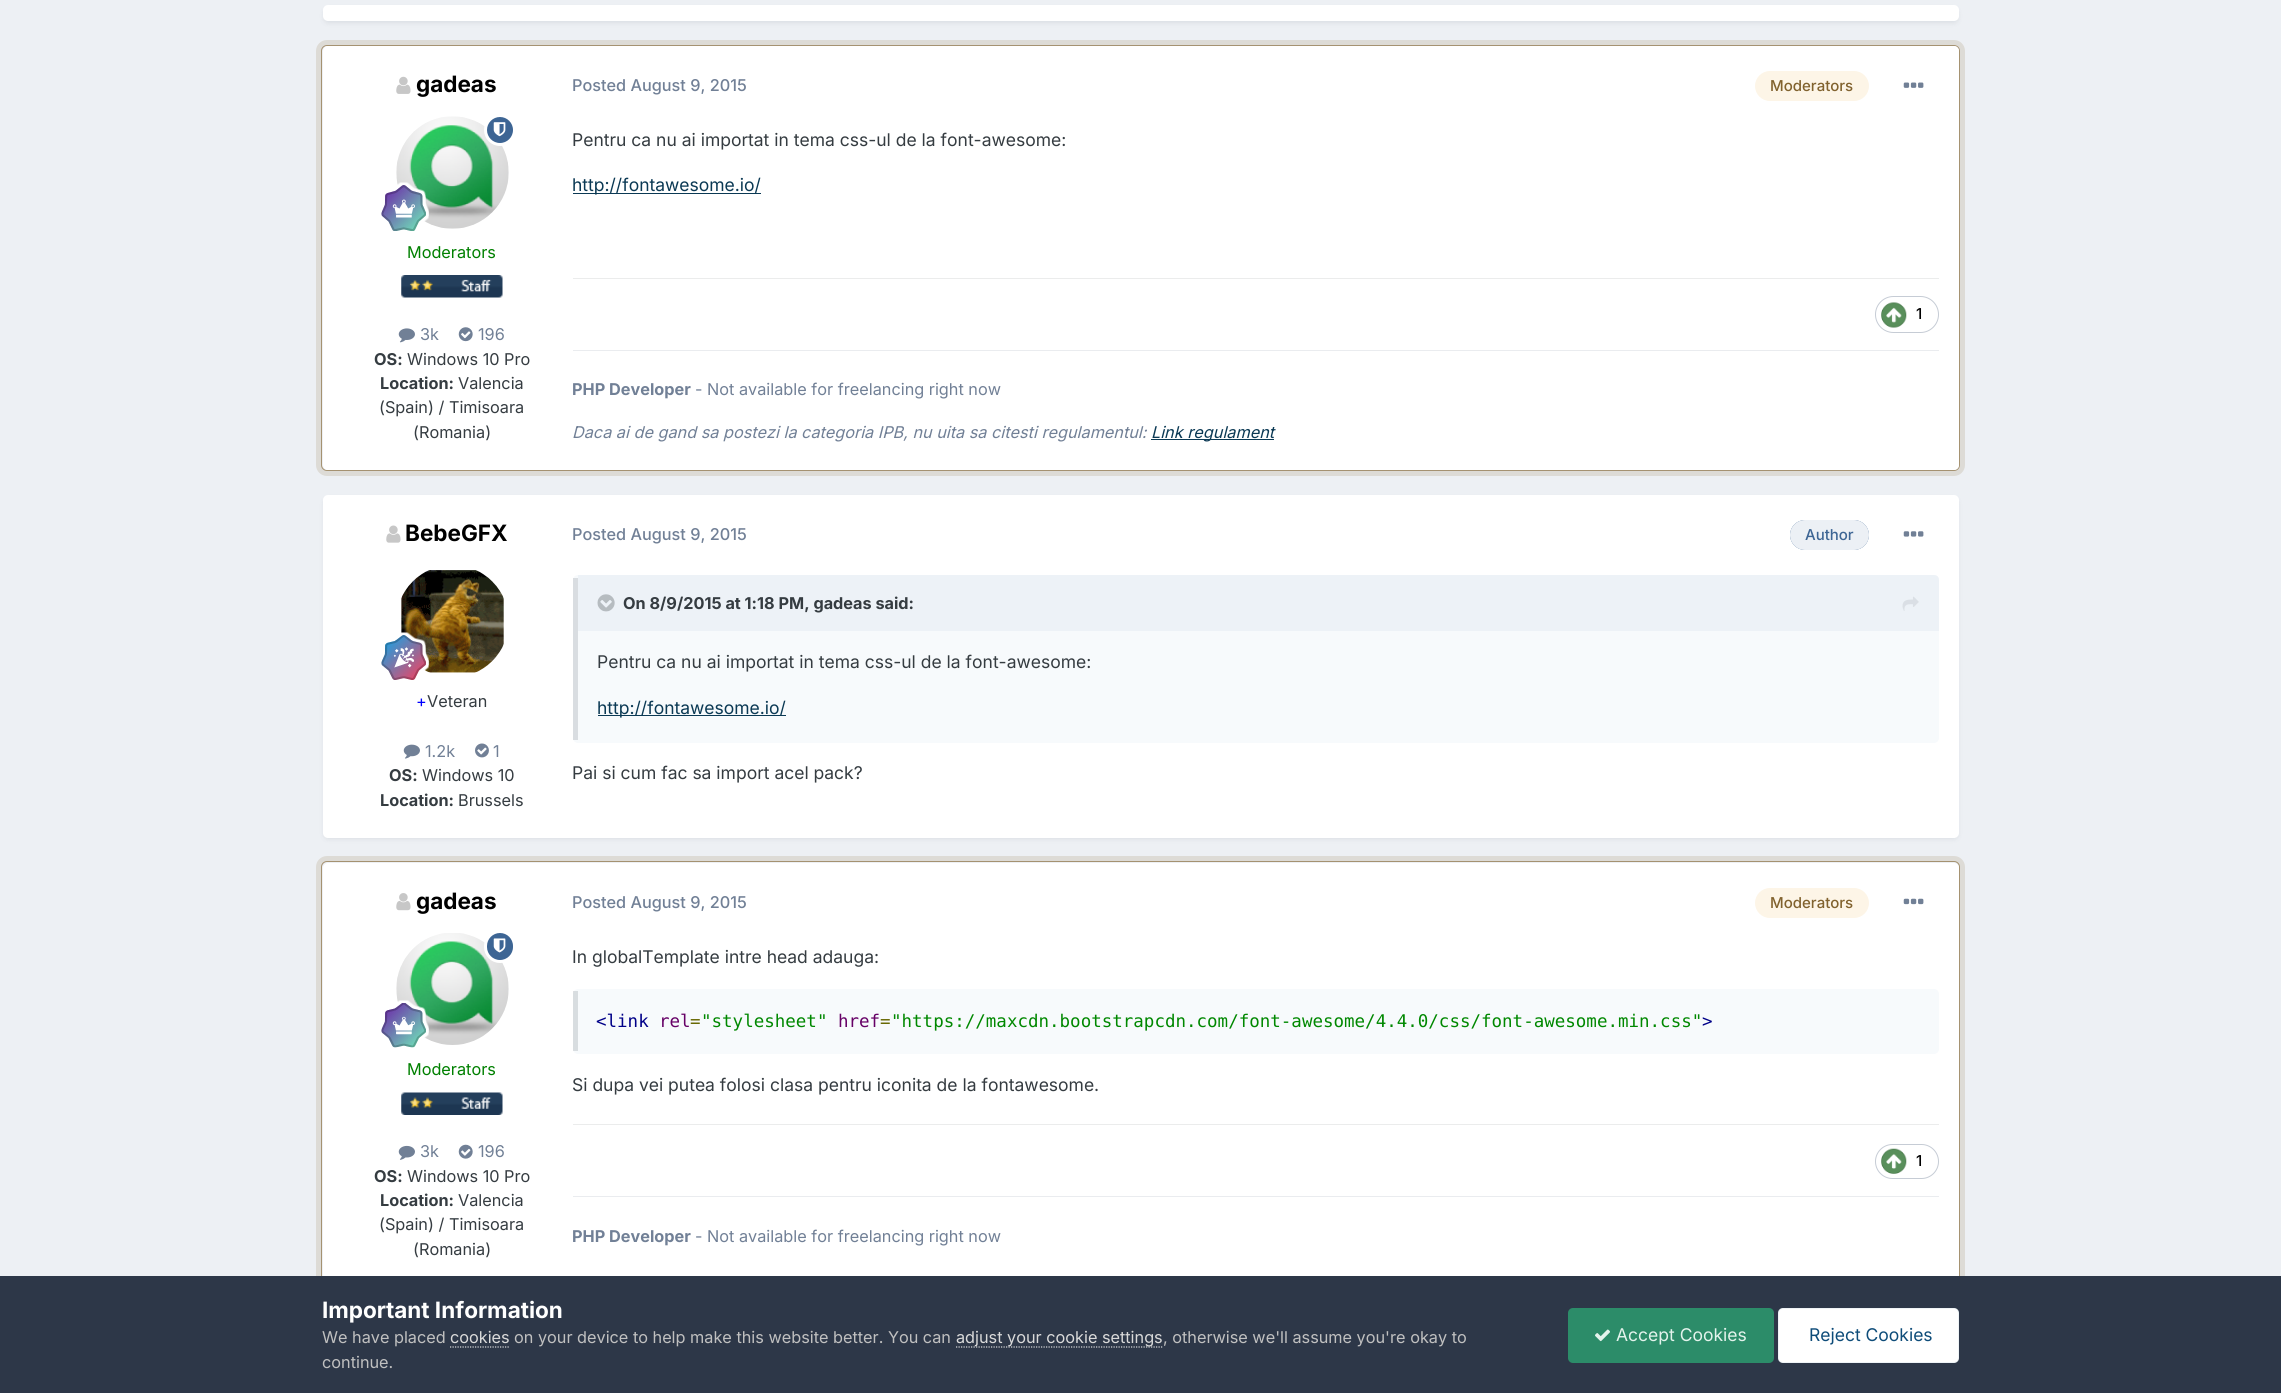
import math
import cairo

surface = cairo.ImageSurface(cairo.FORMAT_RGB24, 2281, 1393)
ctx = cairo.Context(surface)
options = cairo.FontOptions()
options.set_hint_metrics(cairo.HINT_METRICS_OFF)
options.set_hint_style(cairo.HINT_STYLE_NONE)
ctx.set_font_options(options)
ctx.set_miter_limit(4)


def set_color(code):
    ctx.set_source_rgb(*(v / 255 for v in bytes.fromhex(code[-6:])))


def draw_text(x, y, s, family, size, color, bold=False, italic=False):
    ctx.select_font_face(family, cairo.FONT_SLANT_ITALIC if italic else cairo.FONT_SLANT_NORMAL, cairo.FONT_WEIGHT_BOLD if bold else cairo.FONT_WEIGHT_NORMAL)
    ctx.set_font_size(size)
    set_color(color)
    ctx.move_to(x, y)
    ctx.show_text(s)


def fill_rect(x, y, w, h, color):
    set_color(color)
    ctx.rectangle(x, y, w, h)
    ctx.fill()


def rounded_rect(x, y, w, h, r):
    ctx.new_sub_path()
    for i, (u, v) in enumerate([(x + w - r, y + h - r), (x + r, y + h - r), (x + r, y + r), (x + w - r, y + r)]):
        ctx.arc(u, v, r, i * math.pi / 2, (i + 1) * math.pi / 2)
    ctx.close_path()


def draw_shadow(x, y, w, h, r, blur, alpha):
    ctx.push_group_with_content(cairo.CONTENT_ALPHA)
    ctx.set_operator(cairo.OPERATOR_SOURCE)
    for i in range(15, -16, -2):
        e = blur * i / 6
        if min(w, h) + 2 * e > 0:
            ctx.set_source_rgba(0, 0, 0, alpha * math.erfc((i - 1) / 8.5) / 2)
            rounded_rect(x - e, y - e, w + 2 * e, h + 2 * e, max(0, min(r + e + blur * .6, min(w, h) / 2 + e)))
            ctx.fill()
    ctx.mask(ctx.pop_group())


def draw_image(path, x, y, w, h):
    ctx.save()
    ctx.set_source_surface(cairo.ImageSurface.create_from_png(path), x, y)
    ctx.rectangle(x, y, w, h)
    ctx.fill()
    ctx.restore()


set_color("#edf0f4")
ctx.paint()
set_color("#2d3748")
draw_shadow(324, 9, 1634, 14, 4, 2.5, 0.1)
set_color("#ffffff")
rounded_rect(323, 5, 1636, 16, 5)
ctx.fill()
rounded_rect(319, 43, 1643, 430, 8)
set_color("#dddbd6")
ctx.set_line_width(6)
ctx.stroke()
rounded_rect(321.5, 45.5, 1638, 425, 5.5)
ctx.set_source_rgba(0.506, 0.384, 0.18, 0.6)
ctx.set_line_width(1)
ctx.stroke()
set_color("#ffffff")
rounded_rect(323, 46, 1636, 424, 5)
ctx.fill()
draw_image("assets/img1.png", 396, 76, 15, 18)
draw_text(416, 92, "gadeas", "Inter", 22.5, "#000000", bold=True)
draw_image("assets/img3.png", 396, 116, 113, 113)
set_color("#3d6594")
ctx.arc(500, 130, 14.5, 0, 2 * math.pi)
ctx.fill_preserve()
set_color("#ffffff")
ctx.set_line_width(3)
ctx.stroke()
draw_image("assets/img2.png", 493, 122, 13, 15)
draw_image("assets/img4.png", 381, 182, 48, 49)
draw_text(407, 258, "Moderators", "Inter", 16.25, "#008000")
draw_image("assets/img5.png", 401, 275, 102, 23)
draw_image("assets/img6.png", 398, 328, 17, 15)
draw_text(420, 340, "3k", "Inter", 16.25, "#718096")
draw_image("assets/img7.png", 458, 327, 15, 15)
draw_text(478, 340, "196", "Inter", 16.25, "#718096")
draw_text(374, 365, "OS:", "Inter", 16.25, "#353c41", bold=True)
draw_text(407, 365, "Windows 10 Pro", "Inter", 16.25, "#353c41")
draw_text(380, 389, "Location:", "Inter", 16.25, "#353c41", bold=True)
draw_text(458, 389, "Valencia", "Inter", 16.25, "#353c41")
draw_text(379, 413, "(Spain) / Timisoara", "Inter", 16.25, "#353c41")
draw_text(413, 438, "(Romania)", "Inter", 16.25, "#353c41")
draw_text(572, 91, "Posted August 9, 2015", "Inter Medium", 16.25, "#718096")
set_color("#fdf5e7")
rounded_rect(1755, 71, 114, 30, 15)
ctx.fill()
draw_text(1770, 91, "Moderators", "Inter Medium", 15, "#81622e")
draw_image("assets/img8.png", 1903, 82, 21, 6)
draw_text(572, 146, "Pentru ca nu ai importat in tema css-ul de la font-awesome:", "Inter", 17.5, "#353c41")
fill_rect(573, 193, 188, 1, "#0b3954")
draw_text(572, 191, "http://fontawesome.io/", "Inter", 17.5, "#0b3954")
fill_rect(573, 278, 1366, 1, "#ebecec")
rounded_rect(1875.5, 296.5, 63, 36, 18)
set_color("#c6ccd5")
ctx.set_line_width(1)
ctx.stroke()
draw_image("assets/img9.png", 1881, 302, 26, 26)
draw_text(1916, 319, "1", "Inter Medium", 15, "#000000")
fill_rect(573, 350, 1366, 1, "#eaecef")
draw_text(572, 395, "PHP Developer", "Inter", 16.25, "#718096", bold=True)
draw_text(695, 395, "- Not available for freelancing right now", "Inter", 16.25, "#718096")
draw_text(572, 438, "Daca ai de gand sa postezi la categoria IPB, nu uita sa citesti regulamentul:", "Inter", 16.25, "#718096", italic=True)
fill_rect(1151, 439, 123, 1, "#0b3954")
draw_text(1151, 438, "Link regulament", "Inter", 16.25, "#0b3954", italic=True)
set_color("#2d3748")
draw_shadow(324, 499, 1634, 340, 4, 2.5, 0.1)
set_color("#ffffff")
rounded_rect(323, 495, 1636, 343, 5)
ctx.fill()
draw_image("assets/img10.png", 386, 525, 15, 18)
draw_text(405, 541, "BebeGFX", "Inter", 22.5, "#000000", bold=True)
draw_image("assets/img11.png", 401, 570, 103, 103)
draw_image("assets/img12.png", 381, 632, 48, 48)
draw_text(416, 707, "+", "Inter", 16.25, "#0000ff")
draw_text(427, 707, "Veteran", "Inter", 16.25, "#353c41")
draw_image("assets/img13.png", 403, 744, 17, 15)
draw_text(425, 757, "1.2k", "Inter", 16.25, "#718096")
draw_image("assets/img14.png", 475, 743, 14, 15)
draw_text(493, 757, "1", "Inter", 16.25, "#718096")
draw_text(389, 781, "OS:", "Inter", 16.25, "#353c41", bold=True)
draw_text(422, 781, "Windows 10", "Inter", 16.25, "#353c41")
draw_text(380, 806, "Location:", "Inter", 16.25, "#353c41", bold=True)
draw_text(458, 806, "Brussels", "Inter", 16.25, "#353c41")
draw_text(572, 540, "Posted August 9, 2015", "Inter Medium", 16.25, "#718096")
set_color("#3d6594")
rounded_rect(1790, 520, 79, 30, 15)
ctx.fill()
ctx.set_source_rgba(1, 1, 1, 0.9)
rounded_rect(1790, 520, 79, 30, 15)
ctx.fill()
draw_text(1805, 540, "Author", "Inter Medium", 15, "#3d6594")
draw_image("assets/img15.png", 1903, 531, 21, 6)
set_color("#f7fafc")
rounded_rect(573, 575, 1366, 168, 5)
ctx.fill()
fill_rect(573, 578, 5, 162, "#d9dde1")
set_color("#edf2f7")
ctx.new_path()
ctx.move_to(578, 575)
ctx.line_to(1934, 575)
ctx.curve_to(1937, 575, 1939, 577, 1939, 580)
ctx.line_to(1939, 631)
ctx.line_to(578, 631)
ctx.close_path()
ctx.fill()
draw_image("assets/img16.png", 597, 594, 18, 18)
draw_text(623, 609, "On 8/9/2015 at 1:18 PM, gadeas said:", "Inter", 16.25, "#353c41", bold=True)
draw_image("assets/img17.png", 1902, 596, 17, 15)
draw_text(597, 668, "Pentru ca nu ai importat in tema css-ul de la font-awesome:", "Inter", 17.5, "#353c41")
fill_rect(598, 715, 188, 1, "#0b3954")
draw_text(597, 714, "http://fontawesome.io/", "Inter", 17.5, "#0b3954")
draw_text(572, 779, "Pai si cum fac sa import acel pack?", "Inter", 17.5, "#353c41")
rounded_rect(319, 859, 1643, 461, 8)
set_color("#dddbd6")
ctx.set_line_width(6)
ctx.stroke()
rounded_rect(321.5, 861.5, 1638, 456, 5.5)
ctx.set_source_rgba(0.506, 0.384, 0.18, 0.6)
ctx.set_line_width(1)
ctx.stroke()
set_color("#ffffff")
rounded_rect(323, 863, 1636, 453, 5)
ctx.fill()
draw_image("assets/img18.png", 396, 893, 15, 18)
draw_text(416, 909, "gadeas", "Inter", 22.5, "#000000", bold=True)
draw_image("assets/img20.png", 396, 933, 113, 112)
set_color("#3d6594")
rounded_rect(485.5, 931.5, 29, 30, 14.5)
ctx.fill_preserve()
set_color("#ffffff")
ctx.set_line_width(3)
ctx.stroke()
draw_image("assets/img19.png", 493, 938, 13, 15)
draw_image("assets/img21.png", 381, 1000, 48, 48)
draw_text(407, 1075, "Moderators", "Inter", 16.25, "#008000")
draw_image("assets/img22.png", 401, 1092, 102, 23)
draw_image("assets/img23.png", 398, 1145, 17, 15)
draw_text(420, 1157, "3k", "Inter", 16.25, "#718096")
draw_image("assets/img24.png", 458, 1144, 15, 15)
draw_text(478, 1157, "196", "Inter", 16.25, "#718096")
draw_text(374, 1182, "OS:", "Inter", 16.25, "#353c41", bold=True)
draw_text(407, 1182, "Windows 10 Pro", "Inter", 16.25, "#353c41")
draw_text(380, 1206, "Location:", "Inter", 16.25, "#353c41", bold=True)
draw_text(458, 1206, "Valencia", "Inter", 16.25, "#353c41")
draw_text(379, 1230, "(Spain) / Timisoara", "Inter", 16.25, "#353c41")
draw_text(413, 1255, "(Romania)", "Inter", 16.25, "#353c41")
draw_text(572, 908, "Posted August 9, 2015", "Inter Medium", 16.25, "#718096")
set_color("#fdf5e7")
rounded_rect(1755, 888, 114, 30, 15)
ctx.fill()
draw_text(1770, 908, "Moderators", "Inter Medium", 15, "#81622e")
draw_image("assets/img25.png", 1903, 898, 21, 7)
draw_text(572, 963, "In globalTemplate intre head adauga:", "Inter", 17.5, "#353c41")
set_color("#f7fafc")
rounded_rect(573, 989, 1366, 65, 5)
ctx.fill()
ctx.set_source_rgba(0.176, 0.216, 0.282, 0.15)
ctx.rectangle(573, 991, 5, 60)
ctx.fill()
draw_text(596, 1027, "<link", "DejaVu Sans Mono", 17.5, "#000088")
draw_text(659, 1027, "rel", "DejaVu Sans Mono", 17.5, "#660066")
draw_text(690, 1027, "=", "DejaVu Sans Mono", 17.5, "#666600")
draw_text(701, 1027, "\"stylesheet\"", "DejaVu Sans Mono", 17.5, "#008800")
draw_text(838, 1027, "href", "DejaVu Sans Mono", 17.5, "#660066")
draw_text(880, 1027, "=", "DejaVu Sans Mono", 17.5, "#666600")
draw_text(891, 1027, "\"https://maxcdn.bootstrapcdn.com/font-awesome/4.4.0/css/font-awesome.min.css\"", "DejaVu Sans Mono", 17.5, "#008800")
draw_text(1702, 1027, ">", "DejaVu Sans Mono", 17.5, "#000088")
draw_text(572, 1091, "Si dupa vei putea folosi clasa pentru iconita de la fontawesome.", "Inter", 17.5, "#353c41")
fill_rect(573, 1124, 1366, 1, "#ebecec")
rounded_rect(1875.5, 1144.5, 63, 34, 17)
set_color("#c6ccd5")
ctx.set_line_width(1)
ctx.stroke()
draw_image("assets/img26.png", 1881, 1148, 26, 26)
draw_text(1916, 1166, "1", "Inter Medium", 15, "#000000")
fill_rect(573, 1196, 1366, 1, "#eaecef")
draw_text(572, 1242, "PHP Developer", "Inter", 16.25, "#718096", bold=True)
draw_text(695, 1242, "- Not available for freelancing right now", "Inter", 16.25, "#718096")
fill_rect(0, 1276, 2281, 117, "#2d3748")
draw_text(322, 1318, "Important Information", "Inter", 22.5, "#ffffff", bold=True)
draw_text(322, 1343, "We have placed", "Inter", 16.25, "#c0c0c0")
draw_text(450, 1343, "cookies", "Inter", 16.25, "#dadada")
ctx.new_path()
ctx.move_to(450, 1347)
ctx.line_to(510, 1347)
ctx.set_line_width(1.2)
ctx.set_dash([1.25, 1.25])
ctx.stroke()
draw_text(514, 1343, "on your device to help make this website better. You can", "Inter", 16.25, "#c0c0c0")
ctx.new_path()
ctx.move_to(956, 1347)
ctx.line_to(1162.5, 1347)
set_color("#dadada")
ctx.stroke()
draw_text(956, 1343, "adjust your cookie settings", "Inter", 16.25, "#dadada")
draw_text(1163, 1343, ", otherwise we'll assume you're okay to", "Inter", 16.25, "#c0c0c0")
draw_text(322, 1368, "continue.", "Inter", 16.25, "#c0c0c0")
set_color("#2c8c69")
rounded_rect(1568, 1308, 206, 55, 5)
ctx.fill()
draw_image("assets/img27.png", 1595, 1329, 15, 13)
draw_text(1616, 1341, "Accept Cookies", "Inter", 17.5, "#e3f3ec")
set_color("#ffffff")
rounded_rect(1778, 1308, 181, 55, 5)
ctx.fill()
rounded_rect(1778.5, 1308.5, 180, 54, 4.5)
ctx.set_source_rgba(0.055, 0.298, 0.475, 0.07)
ctx.set_line_width(1)
ctx.set_dash([])
ctx.stroke()
draw_text(1809, 1341, "Reject Cookies", "Inter", 17.5, "#0e4c79")
surface.write_to_png("output.png")
